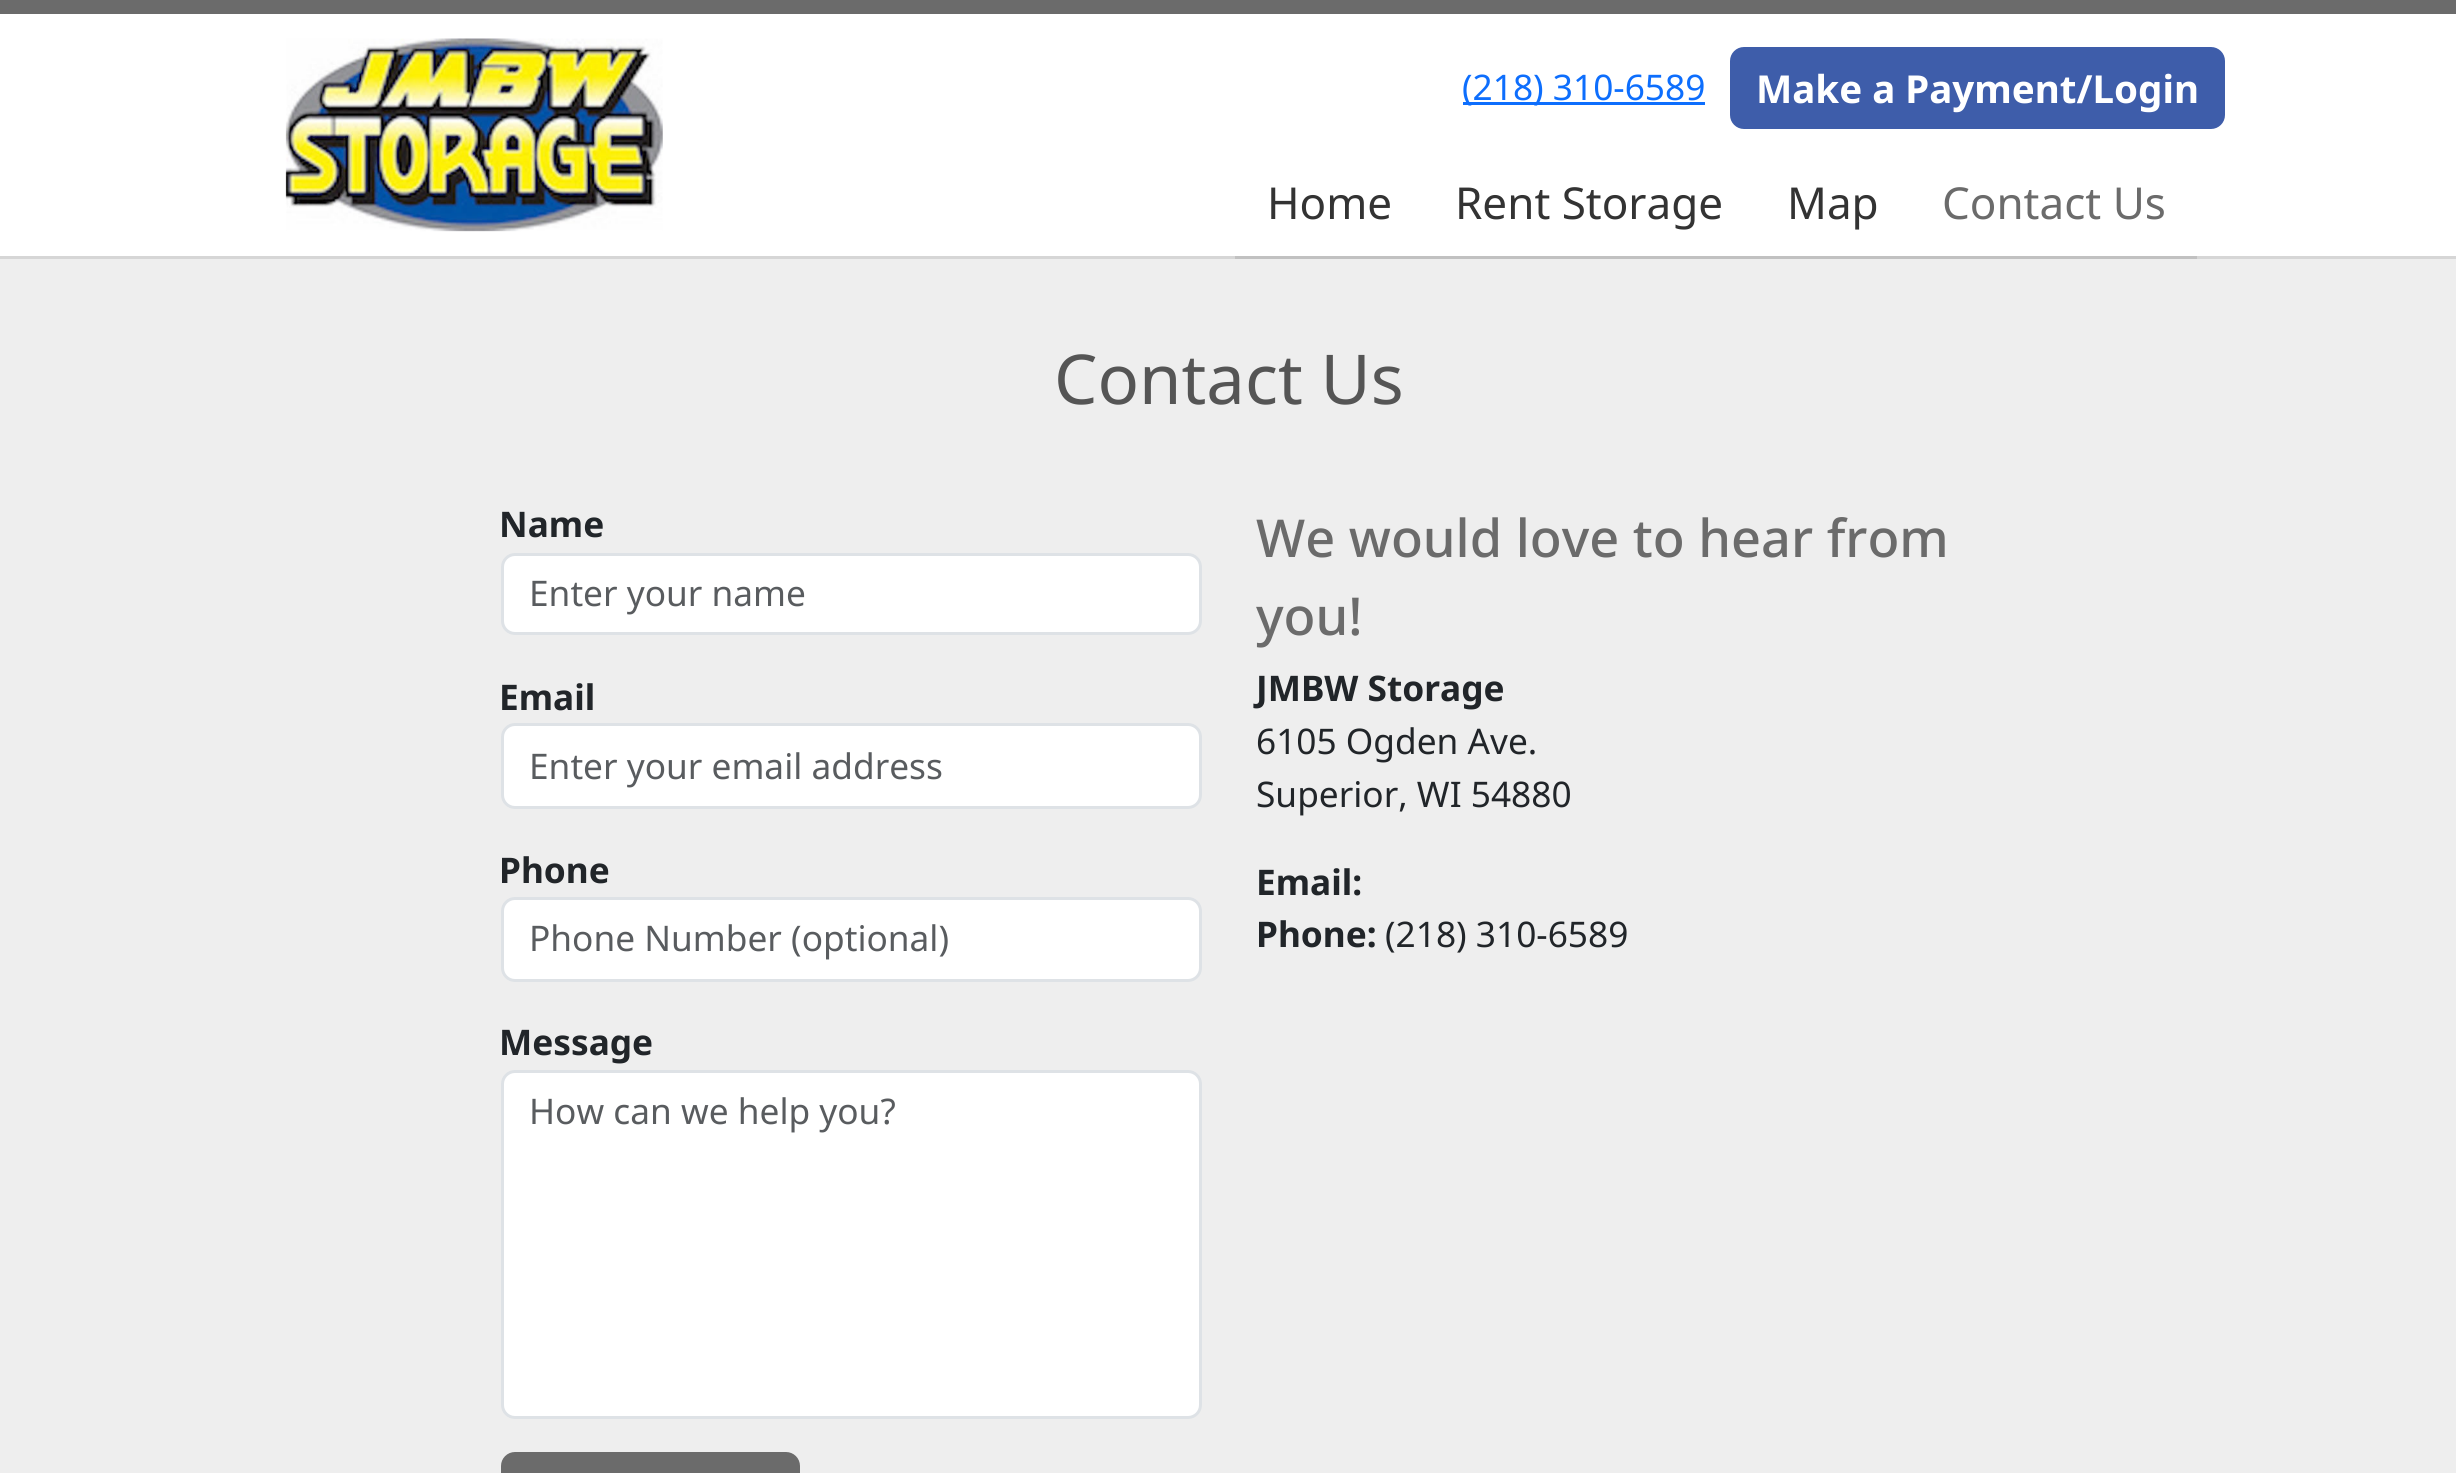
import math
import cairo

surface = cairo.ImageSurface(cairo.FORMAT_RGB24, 2456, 1473)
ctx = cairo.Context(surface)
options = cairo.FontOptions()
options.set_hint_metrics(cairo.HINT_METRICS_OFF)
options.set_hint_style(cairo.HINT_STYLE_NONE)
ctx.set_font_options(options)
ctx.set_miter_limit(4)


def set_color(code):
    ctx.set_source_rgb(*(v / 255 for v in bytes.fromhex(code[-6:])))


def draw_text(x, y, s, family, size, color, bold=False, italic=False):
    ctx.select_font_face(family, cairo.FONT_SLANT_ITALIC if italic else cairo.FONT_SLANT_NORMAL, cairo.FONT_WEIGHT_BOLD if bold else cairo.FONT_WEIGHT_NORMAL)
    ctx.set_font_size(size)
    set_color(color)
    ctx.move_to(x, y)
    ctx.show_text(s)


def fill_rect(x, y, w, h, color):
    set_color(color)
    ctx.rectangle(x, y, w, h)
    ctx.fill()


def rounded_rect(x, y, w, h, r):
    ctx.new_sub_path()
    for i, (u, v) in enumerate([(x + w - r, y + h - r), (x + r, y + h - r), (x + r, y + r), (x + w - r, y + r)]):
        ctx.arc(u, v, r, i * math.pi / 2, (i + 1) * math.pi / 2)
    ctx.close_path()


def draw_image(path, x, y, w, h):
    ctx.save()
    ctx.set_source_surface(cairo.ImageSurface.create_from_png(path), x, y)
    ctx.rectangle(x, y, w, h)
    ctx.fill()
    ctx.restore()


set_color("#eeeeee")
ctx.paint()
set_color("#d6d6d6")
ctx.new_path()
ctx.move_to(0, 256)
ctx.line_to(0, 259)
ctx.line_to(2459, 259)
ctx.line_to(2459, 3)
ctx.line_to(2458, 3)
ctx.line_to(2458, 256)
ctx.close_path()
ctx.fill()
fill_rect(0, 14, 2456, 242, "#ffffff")
fill_rect(0, 0, 2456, 14, "#6b6b6b")
draw_image("assets/img1.png", 285, 38, 378, 194)
fill_rect(1463, 102, 242, 3, "#0d6efd")
draw_text(1462, 100, "(218) 310-6589", "Noto Sans", 35.25, "#0d6efd")
set_color("#3e5daa")
rounded_rect(1730, 47, 495, 82, 14)
ctx.fill()
draw_text(1756, 103, "Make a Payment/Login", "Noto Sans", 38.5, "#ffffff", bold=True)
fill_rect(1235, 256, 962, 3, "#c1c1c1")
draw_text(1267, 219, "Home", "Noto Sans", 44, "#333333")
draw_text(1455, 219, "Rent Storage", "Noto Sans", 44, "#333333")
draw_text(1787, 219, "Map", "Noto Sans", 44, "#333333")
draw_text(1942, 219, "Contact Us", "Noto Sans", 44, "#6b6b6b")
draw_text(1054, 404, "Contact Us", "Noto Sans", 68.75, "#555555")
draw_text(499, 537, "Name", "Noto Sans", 35.25, "#212529", bold=True)
set_color("#ffffff")
rounded_rect(502.5, 554.5, 698, 79, 12.5)
ctx.fill_preserve()
set_color("#dee2e6")
ctx.set_line_width(3)
ctx.stroke()
draw_text(529, 606, "Enter your name", "Noto Sans", 35.25, "#595c5f")
draw_text(499, 710, "Email", "Noto Sans", 35.25, "#212529", bold=True)
set_color("#ffffff")
rounded_rect(502.5, 724.5, 698, 83, 12.5)
ctx.fill_preserve()
set_color("#dee2e6")
ctx.stroke()
draw_text(529, 779, "Enter your email address", "Noto Sans", 35.25, "#595c5f")
draw_text(499, 883, "Phone", "Noto Sans", 35.25, "#212529", bold=True)
set_color("#ffffff")
rounded_rect(502.5, 898.5, 698, 82, 12.5)
ctx.fill_preserve()
set_color("#dee2e6")
ctx.stroke()
draw_text(529, 951, "Phone Number (optional)", "Noto Sans", 35.25, "#595c5f")
draw_text(499, 1055, "Message", "Noto Sans", 35.25, "#212529", bold=True)
set_color("#ffffff")
rounded_rect(502.5, 1071.5, 698, 346, 12.5)
ctx.fill_preserve()
set_color("#dee2e6")
ctx.stroke()
draw_text(529, 1124, "How can we help you?", "Noto Sans", 35.25, "#595c5f")
set_color("#6b6b6b")
rounded_rect(501, 1452, 299, 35, 14)
ctx.fill()
draw_text(1256, 557, "We would love to hear from", "Noto Sans Medium", 52.25, "#6b6b6b")
draw_text(1256, 635, "you!", "Noto Sans Medium", 52.25, "#6b6b6b")
draw_text(1256, 701, "JMBW Storage", "Noto Sans", 35.25, "#212529", bold=True)
draw_text(1256, 754, "6105 Ogden Ave.", "Noto Sans", 35.25, "#212529")
draw_text(1256, 807, "Superior, WI 54880", "Noto Sans", 35.25, "#212529")
draw_text(1256, 895, "Email:", "Noto Sans", 35.25, "#212529", bold=True)
draw_text(1256, 947, "Phone:", "Noto Sans", 35.25, "#212529", bold=True)
draw_text(1385, 947, "(218) 310-6589", "Noto Sans", 35.25, "#212529")
surface.write_to_png("output.png")
